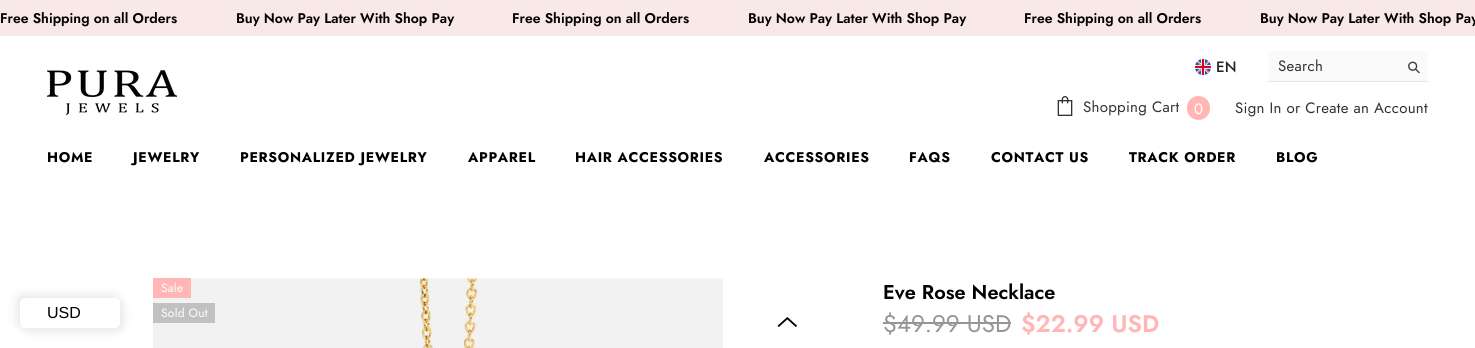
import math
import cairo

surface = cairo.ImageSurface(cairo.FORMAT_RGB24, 1475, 348)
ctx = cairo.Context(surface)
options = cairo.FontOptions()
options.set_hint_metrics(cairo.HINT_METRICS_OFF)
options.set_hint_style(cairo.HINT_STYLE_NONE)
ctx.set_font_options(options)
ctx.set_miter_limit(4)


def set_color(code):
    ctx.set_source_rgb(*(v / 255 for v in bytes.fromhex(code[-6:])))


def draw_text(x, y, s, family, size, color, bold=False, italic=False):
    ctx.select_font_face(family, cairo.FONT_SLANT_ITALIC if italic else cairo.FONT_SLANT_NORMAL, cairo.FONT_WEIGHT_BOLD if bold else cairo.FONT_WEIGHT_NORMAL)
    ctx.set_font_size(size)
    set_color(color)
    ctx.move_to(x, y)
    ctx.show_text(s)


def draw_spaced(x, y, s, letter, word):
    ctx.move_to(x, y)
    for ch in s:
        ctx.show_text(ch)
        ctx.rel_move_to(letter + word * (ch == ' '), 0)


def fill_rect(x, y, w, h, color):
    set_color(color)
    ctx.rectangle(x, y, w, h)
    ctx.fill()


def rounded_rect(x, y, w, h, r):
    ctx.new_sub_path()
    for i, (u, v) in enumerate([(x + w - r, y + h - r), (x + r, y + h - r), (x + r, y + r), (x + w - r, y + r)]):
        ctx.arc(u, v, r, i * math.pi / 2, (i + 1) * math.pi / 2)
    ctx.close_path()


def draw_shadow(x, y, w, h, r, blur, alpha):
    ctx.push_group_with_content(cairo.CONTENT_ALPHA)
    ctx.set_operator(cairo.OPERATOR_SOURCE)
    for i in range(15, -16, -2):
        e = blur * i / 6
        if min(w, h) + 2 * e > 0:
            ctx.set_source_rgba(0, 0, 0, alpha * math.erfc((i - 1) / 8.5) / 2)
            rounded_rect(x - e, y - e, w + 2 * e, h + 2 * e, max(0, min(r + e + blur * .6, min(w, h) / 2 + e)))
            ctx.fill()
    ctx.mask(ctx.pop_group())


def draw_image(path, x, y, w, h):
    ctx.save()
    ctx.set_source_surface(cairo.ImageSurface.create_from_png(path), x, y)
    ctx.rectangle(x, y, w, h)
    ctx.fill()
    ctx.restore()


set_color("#ffffff")
ctx.paint()
fill_rect(0, 0, 1475, 36, "#f8e8e7")
draw_text(0, 23, "Free Shipping on all Orders", "Jost SemiBold", 14, "#000000")
draw_text(236, 23, "Buy Now Pay Later With Shop Pay", "Jost SemiBold", 14, "#000000")
draw_text(512, 23, "Free Shipping on all Orders", "Jost SemiBold", 14, "#000000")
draw_text(748, 23, "Buy Now Pay Later With Shop Pay", "Jost SemiBold", 14, "#000000")
draw_text(1024, 23, "Free Shipping on all Orders", "Jost SemiBold", 14, "#000000")
draw_text(1260, 23, "Buy Now Pay Later With Shop Pay", "Jost SemiBold", 14, "#000000")
draw_image("assets/img1.png", 47, 70, 130, 45)
draw_image("assets/img2.png", 1195, 59, 16, 16)
ctx.select_font_face("Jost Medium")
ctx.set_font_size(15)
set_color("#232323")
draw_spaced(1216, 72, "EN", 0.3, 0)
fill_rect(1268, 51, 160, 30, "#fafafa")
fill_rect(1268, 81, 160, 1, "#e7e7e7")
ctx.select_font_face("Jost")
set_color("#323232")
draw_spaced(1278, 71, "Search", 0.3, 0)
draw_image("assets/img3.png", 1408, 61, 12, 13)
draw_image("assets/img4.png", 1057, 96, 16, 20)
draw_spaced(1083, 112, "Shopping Cart", 0.3, 0)
set_color("#ffb6b4")
rounded_rect(1187, 96, 23, 24, 11.5)
ctx.fill()
set_color("#ffffff")
draw_spaced(1194, 114, "0", 0.3, 0)
set_color("#323232")
draw_spaced(1235, 113, "Sign In or Create an Account", 0.3, 0)
ctx.select_font_face("Jost", cairo.FONT_SLANT_NORMAL, cairo.FONT_WEIGHT_BOLD)
ctx.set_font_size(14)
set_color("#000000")
draw_spaced(47, 162, "HOME", 0.7, 0)
draw_spaced(133, 162, "JEWELRY", 0.7, 0)
draw_spaced(240, 162, "PERSONALIZED JEWELRY", 0.7, 0)
draw_spaced(468, 162, "APPAREL", 0.7, 0)
draw_spaced(575, 162, "HAIR ACCESSORIES", 0.7, 0)
draw_spaced(764, 162, "ACCESSORIES", 0.7, 0)
draw_spaced(909, 162, "FAQS", 0.7, 0)
draw_spaced(991, 162, "CONTACT US", 0.7, 0)
draw_spaced(1129, 162, "TRACK ORDER", 0.7, 0)
draw_spaced(1276, 162, "BLOG", 0.7, 0)
draw_image("assets/img5.png", 153, 278, 570, 70)
fill_rect(153, 278, 38, 20, "#ffb6b4")
ctx.select_font_face("Jost")
ctx.set_font_size(12)
set_color("#ffffff")
draw_spaced(161, 292, "Sale", 0.25, 0)
fill_rect(153, 303, 62, 20, "#c1c1c1")
set_color("#ffffff")
draw_spaced(161, 317, "Sold Out", 0.25, 0)
draw_image("assets/img6.png", 777, 317, 20, 10)
draw_text(883, 299, "Eve Rose Necklace", "Jost SemiBold", 20, "#000000")
draw_text(883, 332, "$49.99 USD", "Jost", 24, "#969696")
fill_rect(883, 322, 128, 2, "#969696")
draw_text(1021, 332, "$22.99 USD", "Jost SemiBold", 24, "#ffb6b4")
set_color("#e8e8e8")
draw_shadow(17, 295, 100, 30, 5, 5, 1)
draw_shadow(23, 301, 100, 30, 5, 5, 1)
set_color("#ffffff")
rounded_rect(20, 298, 100, 30, 5)
ctx.fill()
draw_text(47, 318, "USD", "Liberation Sans", 16, "#000000")
surface.write_to_png("output.png")
